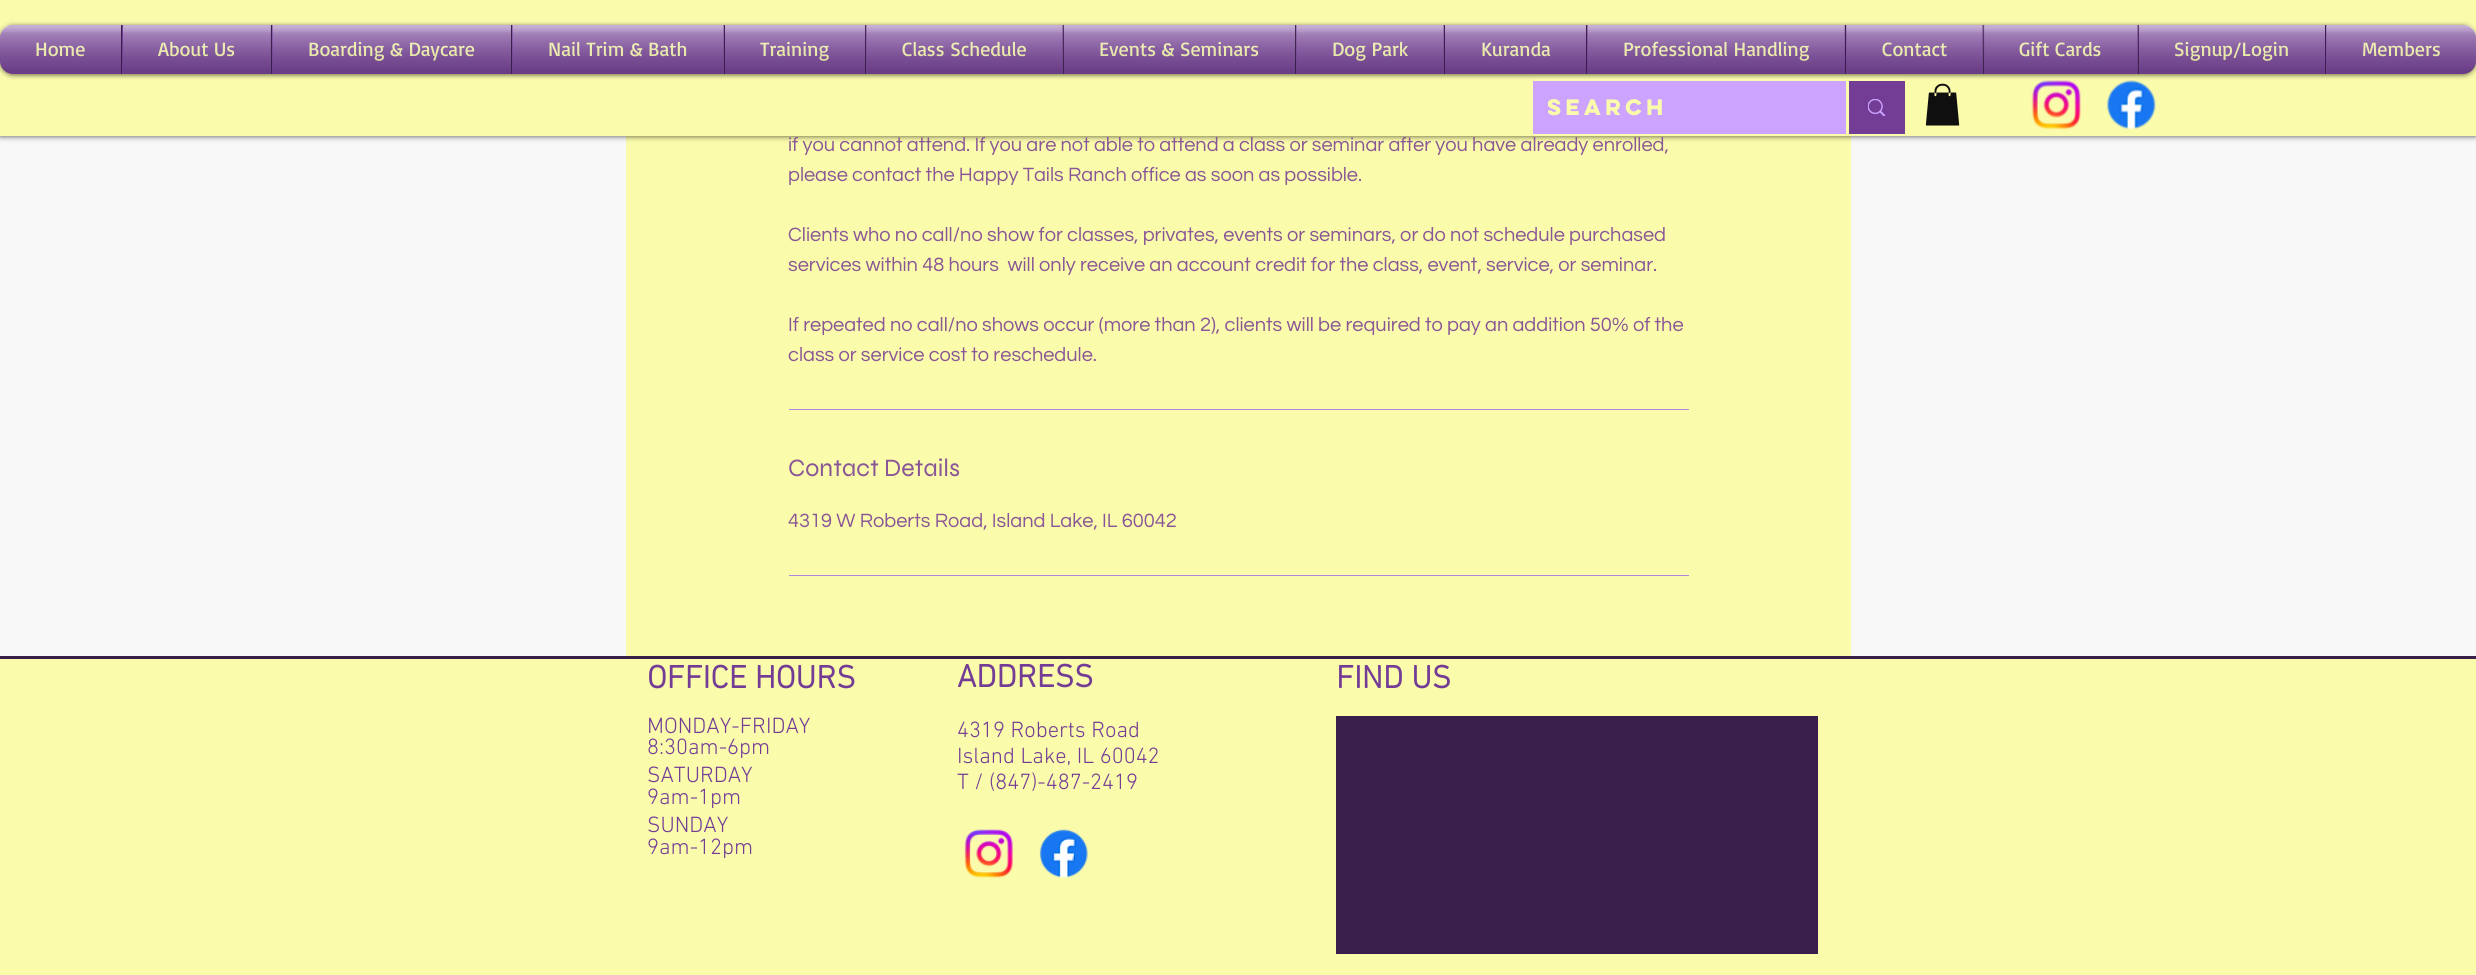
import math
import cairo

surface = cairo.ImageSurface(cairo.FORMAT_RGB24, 2476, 975)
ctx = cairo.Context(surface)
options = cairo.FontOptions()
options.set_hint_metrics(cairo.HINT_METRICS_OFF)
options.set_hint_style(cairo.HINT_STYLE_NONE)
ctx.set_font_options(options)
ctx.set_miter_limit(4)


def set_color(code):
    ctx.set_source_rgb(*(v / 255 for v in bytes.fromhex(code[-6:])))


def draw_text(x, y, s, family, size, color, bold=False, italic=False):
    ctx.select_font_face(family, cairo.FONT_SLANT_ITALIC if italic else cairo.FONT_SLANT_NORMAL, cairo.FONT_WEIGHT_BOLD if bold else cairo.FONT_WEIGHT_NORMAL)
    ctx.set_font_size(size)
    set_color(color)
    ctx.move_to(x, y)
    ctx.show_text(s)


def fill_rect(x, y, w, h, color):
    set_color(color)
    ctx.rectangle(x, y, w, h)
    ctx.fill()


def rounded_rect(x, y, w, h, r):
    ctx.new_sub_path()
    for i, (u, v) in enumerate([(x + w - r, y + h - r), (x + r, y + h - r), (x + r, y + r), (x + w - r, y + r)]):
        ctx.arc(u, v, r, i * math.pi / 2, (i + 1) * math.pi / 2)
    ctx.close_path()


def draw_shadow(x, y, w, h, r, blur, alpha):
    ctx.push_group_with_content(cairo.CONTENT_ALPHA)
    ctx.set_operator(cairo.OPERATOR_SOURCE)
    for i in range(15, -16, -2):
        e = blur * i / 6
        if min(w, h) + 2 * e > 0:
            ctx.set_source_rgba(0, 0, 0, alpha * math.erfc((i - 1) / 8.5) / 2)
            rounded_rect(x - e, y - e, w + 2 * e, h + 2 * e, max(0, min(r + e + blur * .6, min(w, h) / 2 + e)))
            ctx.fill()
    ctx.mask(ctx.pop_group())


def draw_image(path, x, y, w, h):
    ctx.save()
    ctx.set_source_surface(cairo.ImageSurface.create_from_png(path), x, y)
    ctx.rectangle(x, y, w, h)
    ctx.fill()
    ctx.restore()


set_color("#fbfbac")
ctx.paint()
fill_rect(0, 136, 2476, 520, "#f8f8f8")
fill_rect(626, 136, 1225, 520, "#fbfbac")
set_color("#000000")
draw_shadow(0, 0, 2476, 136, 0, 3, 0.7)
fill_rect(0, 0, 2476, 136, "#fbfbac")
set_color("#000000")
draw_shadow(0, 26, 2476, 49, 13, 2.5, 0.6)
draw_image("assets/img1.png", 0, 25, 2476, 49)
draw_image("assets/img2.png", 0, 35, 2476, 39)
set_color("#733d95")
ctx.new_path()
ctx.move_to(13, 25)
ctx.line_to(121, 25)
ctx.line_to(121, 74)
ctx.line_to(13, 74)
ctx.curve_to(6, 74, 0, 68, 0, 61)
ctx.line_to(0, 38)
ctx.curve_to(0, 31, 6, 25, 13, 25)
ctx.close_path()
ctx.fill()
draw_text(35, 56, "Home", "Basic", 20, "#fbfbac")
draw_image("assets/img3.png", 0, 25, 121, 48)
draw_image("assets/img4.png", 0, 32, 121, 42)
fill_rect(122, 25, 149, 49, "#733d95")
fill_rect(121, 25, 1, 49, "#3a1e4b")
draw_text(158, 56, "About Us", "Basic", 20, "#fbfbac")
draw_image("assets/img5.png", 123, 25, 148, 49)
draw_image("assets/img6.png", 123, 32, 148, 42)
fill_rect(272, 25, 239, 49, "#733d95")
fill_rect(271, 25, 1, 49, "#3a1e4b")
draw_text(308, 56, "Boarding & Daycare", "Basic", 20, "#fbfbac")
draw_image("assets/img7.png", 272, 25, 239, 48)
draw_image("assets/img8.png", 272, 32, 239, 42)
fill_rect(512, 25, 212, 49, "#733d95")
fill_rect(511, 25, 1, 49, "#3a1e4b")
draw_text(548, 56, "Nail Trim & Bath", "Basic", 20, "#fbfbac")
draw_image("assets/img9.png", 512, 25, 212, 49)
draw_image("assets/img10.png", 512, 32, 212, 42)
fill_rect(725, 25, 140, 49, "#733d95")
fill_rect(724, 25, 1, 49, "#3a1e4b")
draw_text(760, 56, "Training", "Basic", 20, "#fbfbac")
draw_image("assets/img11.png", 725, 25, 140, 49)
draw_image("assets/img12.png", 725, 32, 140, 42)
fill_rect(866, 25, 197, 49, "#733d95")
fill_rect(865, 25, 1, 49, "#3a1e4b")
draw_text(902, 56, "Class Schedule", "Basic", 20, "#fbfbac")
draw_image("assets/img13.png", 865, 25, 198, 49)
draw_image("assets/img14.png", 866, 32, 197, 42)
fill_rect(1064, 25, 231, 49, "#733d95")
fill_rect(1063, 25, 1, 49, "#3a1e4b")
draw_text(1099, 56, "Events & Seminars", "Basic", 20, "#fbfbac")
draw_image("assets/img15.png", 1063, 25, 232, 49)
draw_image("assets/img16.png", 1064, 32, 231, 42)
fill_rect(1296, 25, 148, 49, "#733d95")
fill_rect(1295, 25, 1, 49, "#3a1e4b")
draw_text(1332, 56, "Dog Park", "Basic", 20, "#fbfbac")
draw_image("assets/img17.png", 1295, 25, 149, 49)
draw_image("assets/img18.png", 1296, 32, 148, 42)
fill_rect(1445, 25, 141, 49, "#733d95")
fill_rect(1444, 25, 1, 49, "#3a1e4b")
draw_text(1481, 56, "Kuranda", "Basic", 20, "#fbfbac")
draw_image("assets/img19.png", 1445, 25, 141, 49)
draw_image("assets/img20.png", 1445, 32, 141, 42)
fill_rect(1587, 25, 258, 49, "#733d95")
fill_rect(1586, 25, 1, 49, "#3a1e4b")
draw_text(1623, 56, "Professional Handling", "Basic", 20, "#fbfbac")
draw_image("assets/img21.png", 1587, 25, 258, 49)
draw_image("assets/img22.png", 1587, 32, 258, 42)
fill_rect(1846, 25, 137, 49, "#733d95")
fill_rect(1845, 25, 1, 49, "#3a1e4b")
draw_text(1882, 56, "Contact", "Basic", 20, "#fbfbac")
draw_image("assets/img23.png", 1846, 25, 137, 49)
draw_image("assets/img24.png", 1846, 32, 137, 42)
fill_rect(1984, 25, 154, 49, "#733d95")
fill_rect(1983, 25, 1, 49, "#3a1e4b")
draw_text(2019, 56, "Gift Cards", "Basic", 20, "#fbfbac")
draw_image("assets/img25.png", 1983, 25, 155, 49)
draw_image("assets/img26.png", 1983, 32, 155, 42)
fill_rect(2139, 25, 186, 49, "#733d95")
fill_rect(2138, 25, 1, 49, "#3a1e4b")
draw_text(2174, 56, "Signup/Login", "Basic", 20, "#fbfbac")
draw_image("assets/img27.png", 2138, 25, 187, 49)
draw_image("assets/img28.png", 2139, 32, 186, 42)
set_color("#733d95")
ctx.new_path()
ctx.move_to(2325, 25)
ctx.line_to(2463, 25)
ctx.curve_to(2470, 25, 2476, 31, 2476, 38)
ctx.line_to(2476, 61)
ctx.curve_to(2476, 68, 2470, 74, 2463, 74)
ctx.line_to(2325, 74)
ctx.close_path()
ctx.fill()
fill_rect(2325, 25, 1, 49, "#3a1e4b")
draw_text(2362, 56, "Members", "Basic", 20, "#fbfbac")
draw_image("assets/img29.png", 2326, 25, 150, 48)
draw_image("assets/img30.png", 2326, 32, 150, 42)
ctx.rectangle(1531.5, 80.5, 375, 54)
ctx.set_line_width(3)
ctx.stroke()
fill_rect(1533, 81, 313, 53, "#cca3ff")
ctx.save()
ctx.rectangle(1548, 91, 246, 30)
ctx.clip()
draw_text(1547, 115, "Search", "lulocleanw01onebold", 20, "#fbfbac", bold=True)
ctx.restore()
fill_rect(1849, 81, 56, 53, "#733d95")
draw_image("assets/img31.png", 1868, 99, 18, 17)
draw_image("assets/img32.png", 1925, 83, 35, 43)
draw_image("assets/img33.png", 2031, 80, 50, 50)
draw_image("assets/img34.png", 2106, 80, 50, 50)
draw_text(788, 151, "if you cannot attend. If you are not able to attend a class or seminar after you have already enrolled,", "Questrial", 20, "#895696")
draw_text(788, 181, "please contact the Happy Tails Ranch office as soon as possible.", "Questrial", 20, "#895696")
draw_text(788, 241, "Clients who no call/no show for classes, privates, events or seminars, or do not schedule purchased", "Questrial", 20, "#895696")
draw_text(788, 271, "services within 48 hours  will only receive an account credit for the class, event, service, or seminar.", "Questrial", 20, "#895696")
draw_text(788, 331, "If repeated no call/no shows occur (more than 2), clients will be required to pay an addition 50% of the", "Questrial", 20, "#895696")
draw_text(788, 361, "class or service cost to reschedule.", "Questrial", 20, "#895696")
fill_rect(789, 409, 900, 1, "#af87e0")
draw_text(788, 476, "Contact Details", "Syne", 25, "#895696")
draw_text(788, 527, "4319 W Roberts Road, Island Lake, IL 60042", "Questrial", 20, "#895696")
fill_rect(789, 575, 900, 1, "#af87e0")
fill_rect(0, 656, 2476, 3, "#3a1e4b")
draw_text(647, 688, "OFFICE HOURS", "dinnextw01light", 32.5, "#733d95", bold=True)
draw_text(647, 733, "MONDAY-FRIDAY", "dinnextw01light Light", 22.5, "#733d95")
draw_text(647, 754, "8:30am-6pm", "dinnextw01light Light", 22.5, "#733d95")
draw_text(647, 782, "SATURDAY", "dinnextw01light Light", 22.5, "#733d95")
draw_text(647, 804, "9am-1pm", "dinnextw01light Light", 22.5, "#733d95")
draw_text(647, 832, "SUNDAY", "dinnextw01light Light", 22.5, "#733d95")
draw_text(647, 854, "9am-12pm", "dinnextw01light Light", 22.5, "#733d95")
draw_text(957, 687, "ADDRESS", "dinnextw01light", 32.5, "#733d95", bold=True)
draw_text(957, 737, "4319 Roberts Road", "dinnextw01light Light", 22.5, "#733d95")
draw_text(957, 763, "Island Lake, IL 60042", "dinnextw01light Light", 22.5, "#733d95")
draw_text(957, 789, "T / (847)-487-2419", "dinnextw01light Light", 22.5, "#733d95")
draw_text(1336, 688, "FIND US", "dinnextw01light", 32.5, "#733d95", bold=True)
draw_image("assets/img35.png", 964, 829, 49, 49)
draw_image("assets/img36.png", 1039, 829, 49, 49)
fill_rect(1336, 716, 482, 238, "#3a1e4b")
surface.write_to_png("output.png")
